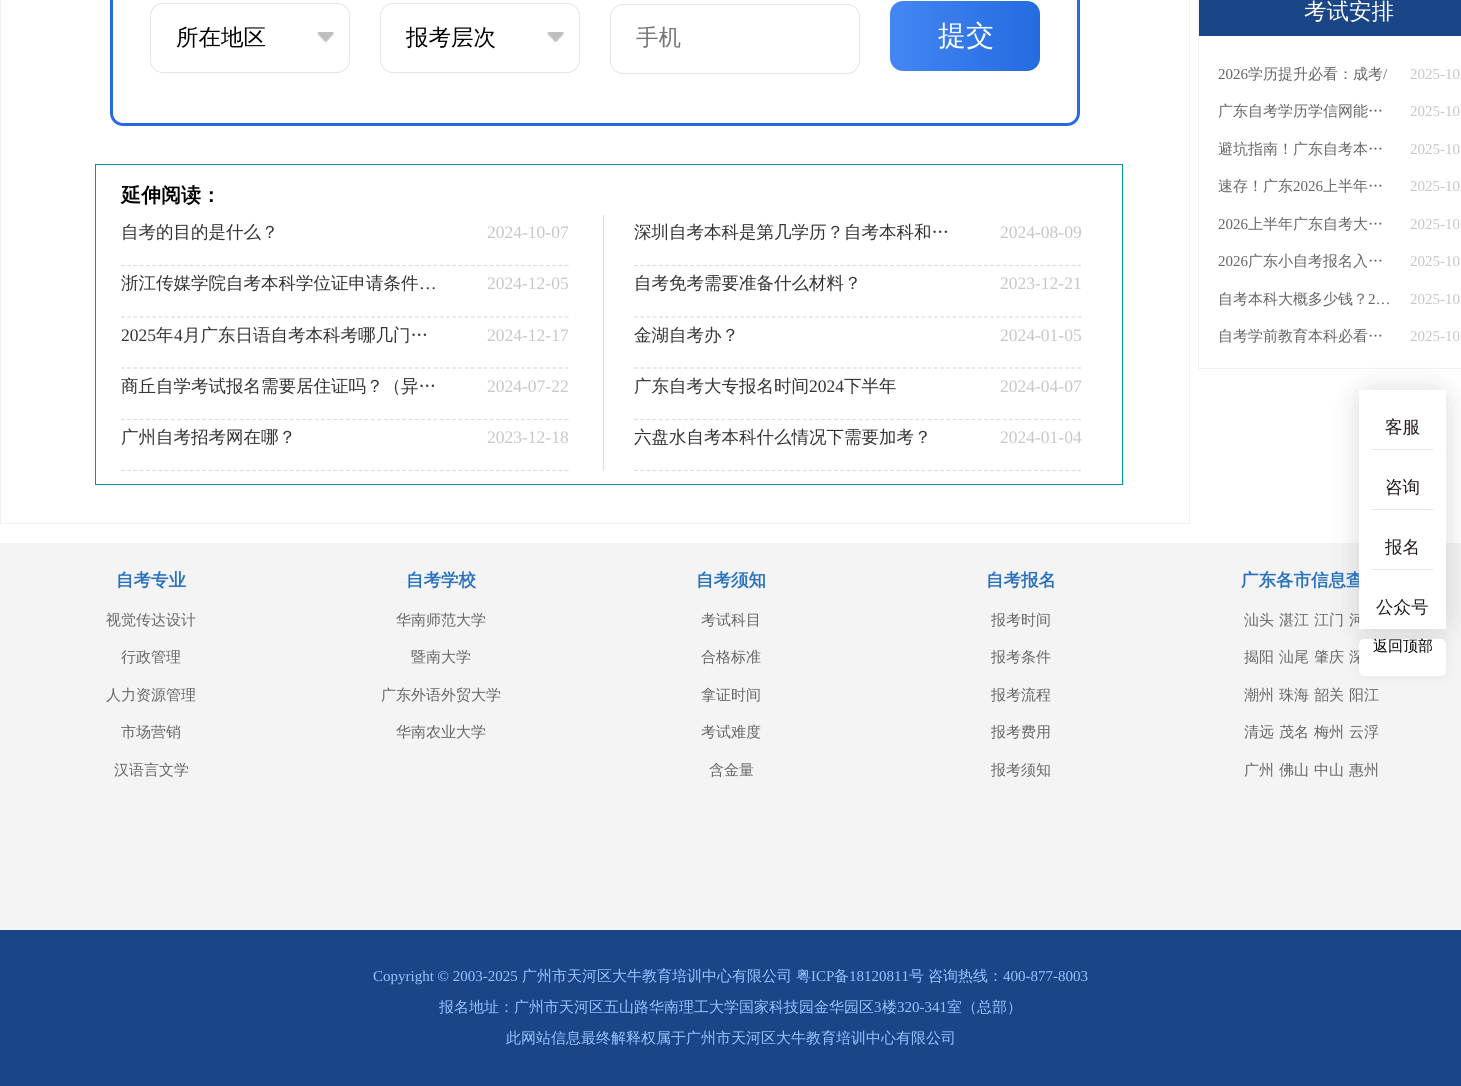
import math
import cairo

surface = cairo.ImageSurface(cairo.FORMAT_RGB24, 1461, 1086)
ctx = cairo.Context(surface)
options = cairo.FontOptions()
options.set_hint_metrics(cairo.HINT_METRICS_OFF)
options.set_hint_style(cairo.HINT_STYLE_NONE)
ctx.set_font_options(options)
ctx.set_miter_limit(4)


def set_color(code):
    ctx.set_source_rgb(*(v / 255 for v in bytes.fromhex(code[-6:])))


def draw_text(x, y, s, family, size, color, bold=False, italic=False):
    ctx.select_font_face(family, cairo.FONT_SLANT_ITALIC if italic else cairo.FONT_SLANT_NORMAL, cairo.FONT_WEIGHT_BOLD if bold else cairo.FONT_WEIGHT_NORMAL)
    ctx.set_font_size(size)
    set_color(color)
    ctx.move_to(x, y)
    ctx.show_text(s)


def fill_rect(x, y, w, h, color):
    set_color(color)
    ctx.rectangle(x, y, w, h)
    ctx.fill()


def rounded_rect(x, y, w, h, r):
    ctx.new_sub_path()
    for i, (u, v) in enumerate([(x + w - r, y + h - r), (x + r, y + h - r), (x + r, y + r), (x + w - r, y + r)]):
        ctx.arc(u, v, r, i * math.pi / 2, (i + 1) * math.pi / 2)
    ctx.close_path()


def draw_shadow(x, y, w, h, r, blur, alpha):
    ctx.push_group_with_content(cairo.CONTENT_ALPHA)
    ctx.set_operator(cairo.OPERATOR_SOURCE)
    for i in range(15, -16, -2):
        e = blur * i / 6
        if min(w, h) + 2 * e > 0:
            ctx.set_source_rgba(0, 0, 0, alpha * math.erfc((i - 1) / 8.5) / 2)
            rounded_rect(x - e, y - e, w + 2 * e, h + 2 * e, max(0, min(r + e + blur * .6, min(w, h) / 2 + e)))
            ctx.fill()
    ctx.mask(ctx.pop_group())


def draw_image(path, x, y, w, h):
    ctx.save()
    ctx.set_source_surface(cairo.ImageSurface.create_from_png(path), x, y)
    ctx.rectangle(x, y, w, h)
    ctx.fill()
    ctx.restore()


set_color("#ffffff")
ctx.paint()
set_color("#f2f2f2")
ctx.new_path()
ctx.move_to(1190, -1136)
ctx.line_to(1190, 524)
ctx.line_to(1189, 522)
ctx.line_to(1189, -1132)
ctx.close_path()
ctx.fill()
fill_rect(0, 523, 1190, 1, "#f2f2f2")
ctx.new_path()
ctx.move_to(0, 524)
ctx.line_to(0, -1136)
ctx.line_to(1, -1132)
ctx.line_to(1, 522)
ctx.close_path()
ctx.fill()
rounded_rect(111.5, -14.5, 967, 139, 11.5)
set_color("#246be1")
ctx.set_line_width(3)
ctx.stroke()
draw_image("assets/img1.png", 317, 32, 17, 10)
rounded_rect(150.5, 3.5, 199, 69, 12.5)
set_color("#e5e5e5")
ctx.set_line_width(1)
ctx.stroke()
draw_text(176, 45, "所在地区", "WenQuanYi Zen Hei Medium", 22.5, "#000000")
draw_image("assets/img1.png", 547, 32, 17, 10)
rounded_rect(380.5, 3.5, 199, 69, 12.5)
set_color("#e5e5e5")
ctx.stroke()
draw_text(406, 45, "报考层次", "WenQuanYi Zen Hei Medium", 22.5, "#000000")
rounded_rect(610.5, 4.5, 249, 69, 12.5)
set_color("#e5e5e5")
ctx.stroke()
draw_text(636, 45, "手机", "WenQuanYi Zen Hei Medium", 22.5, "#757575")
gradient = cairo.LinearGradient(1040, 36, 890, 36)
gradient.add_color_stop_rgba(0, 0.141, 0.42, 0.882, 1)
gradient.add_color_stop_rgba(1, 0.267, 0.525, 0.953, 1)
ctx.set_source(gradient)
rounded_rect(890, 1, 150, 70, 13)
ctx.fill()
draw_text(938, 45, "提交", "WenQuanYi Zen Hei Medium", 28, "#ffffff")
ctx.rectangle(95.5, 164.5, 1027, 320)
set_color("#03949e")
ctx.stroke()
draw_text(121, 202, "延伸阅读：", "WenQuanYi Zen Hei", 20, "#000000", bold=True)
fill_rect(603, 215, 1, 256, "#dddddd")
ctx.new_path()
ctx.move_to(121, 265.5)
ctx.line_to(569, 265.5)
ctx.set_line_width(1.2)
ctx.set_dash([3.75, 2.5])
ctx.stroke()
draw_text(121, 238, "自考的目的是什么？", "WenQuanYi Zen Hei Medium", 17.5, "#333333")
draw_text(487, 238, "2024-10-07", "Liberation Serif", 17.5, "#c7c7c7")
ctx.new_path()
ctx.move_to(121, 317)
ctx.line_to(569, 317)
set_color("#dddddd")
ctx.stroke()
draw_text(121, 289, "浙江传媒学院自考本科学位证申请条件", "WenQuanYi Zen Hei Medium", 17.5, "#333333")
draw_text(419, 289, "…", "Liberation Serif", 17.5, "#333333")
draw_text(487, 289, "2024-12-05", "Liberation Serif", 17.5, "#c7c7c7")
ctx.new_path()
ctx.move_to(121, 368)
ctx.line_to(569, 368)
set_color("#dddddd")
ctx.stroke()
draw_text(121, 341, "2025", "Liberation Serif", 17.5, "#333333")
draw_text(156, 341, "年", "WenQuanYi Zen Hei Medium", 17.5, "#333333")
draw_text(174, 341, "4", "Liberation Serif", 17.5, "#333333")
draw_text(183, 341, "月广东日语自考本科考哪几门…", "WenQuanYi Zen Hei Medium", 17.5, "#333333")
draw_text(487, 341, "2024-12-17", "Liberation Serif", 17.5, "#c7c7c7")
ctx.new_path()
ctx.move_to(121, 419.5)
ctx.line_to(569, 419.5)
set_color("#dddddd")
ctx.stroke()
draw_text(121, 392, "商丘自学考试报名需要居住证吗？（异…", "WenQuanYi Zen Hei Medium", 17.5, "#333333")
draw_text(487, 392, "2024-07-22", "Liberation Serif", 17.5, "#c7c7c7")
ctx.new_path()
ctx.move_to(121, 470.5)
ctx.line_to(569, 470.5)
set_color("#dddddd")
ctx.stroke()
draw_text(121, 443, "广州自考招考网在哪？", "WenQuanYi Zen Hei Medium", 17.5, "#333333")
draw_text(487, 443, "2023-12-18", "Liberation Serif", 17.5, "#c7c7c7")
ctx.new_path()
ctx.move_to(634, 265.5)
ctx.line_to(1081, 265.5)
set_color("#dddddd")
ctx.stroke()
draw_text(634, 238, "深圳自考本科是第几学历？自考本科和…", "WenQuanYi Zen Hei Medium", 17.5, "#333333")
draw_text(1000, 238, "2024-08-09", "Liberation Serif", 17.5, "#c7c7c7")
ctx.new_path()
ctx.move_to(634, 317)
ctx.line_to(1081, 317)
set_color("#dddddd")
ctx.stroke()
draw_text(634, 289, "自考免考需要准备什么材料？", "WenQuanYi Zen Hei Medium", 17.5, "#333333")
draw_text(1000, 289, "2023-12-21", "Liberation Serif", 17.5, "#c7c7c7")
ctx.new_path()
ctx.move_to(634, 368)
ctx.line_to(1081, 368)
set_color("#dddddd")
ctx.stroke()
draw_text(634, 341, "金湖自考办？", "WenQuanYi Zen Hei Medium", 17.5, "#333333")
draw_text(1000, 341, "2024-01-05", "Liberation Serif", 17.5, "#c7c7c7")
ctx.new_path()
ctx.move_to(634, 419.5)
ctx.line_to(1081, 419.5)
set_color("#dddddd")
ctx.stroke()
draw_text(634, 392, "广东自考大专报名时间", "WenQuanYi Zen Hei Medium", 17.5, "#333333")
draw_text(809, 392, "2024", "Liberation Serif", 17.5, "#333333")
draw_text(844, 392, "下半年", "WenQuanYi Zen Hei Medium", 17.5, "#333333")
draw_text(1000, 392, "2024-04-07", "Liberation Serif", 17.5, "#c7c7c7")
ctx.new_path()
ctx.move_to(634, 470.5)
ctx.line_to(1081, 470.5)
set_color("#dddddd")
ctx.stroke()
draw_text(634, 443, "六盘水自考本科什么情况下需要加考？", "WenQuanYi Zen Hei Medium", 17.5, "#333333")
draw_text(1000, 443, "2024-01-04", "Liberation Serif", 17.5, "#c7c7c7")
fill_rect(1198, 368, 263, 1, "#f2f2f2")
fill_rect(1198, 0, 1, 369, "#f2f2f2")
fill_rect(1199, 0, 262, 36, "#1a4587")
draw_text(1304, 19, "考试安排", "WenQuanYi Zen Hei Medium", 22.5, "#ffffff")
draw_text(1218, 79, "2026", "Liberation Serif", 15, "#666666")
draw_text(1248, 79, "学历提升必看：成考", "WenQuanYi Zen Hei Medium", 15, "#666666")
draw_text(1383, 79, "/", "Liberation Serif", 15, "#666666")
draw_text(1410, 79, "2025-10", "Liberation Serif", 15, "#c7c7c7")
draw_text(1218, 116, "广东自考学历学信网能…", "WenQuanYi Zen Hei Medium", 15, "#666666")
draw_text(1410, 116, "2025-10", "Liberation Serif", 15, "#c7c7c7")
draw_text(1218, 154, "避坑指南！广东自考本…", "WenQuanYi Zen Hei Medium", 15, "#666666")
draw_text(1410, 154, "2025-10", "Liberation Serif", 15, "#c7c7c7")
draw_text(1218, 191, "速存！广东", "WenQuanYi Zen Hei Medium", 15, "#666666")
draw_text(1293, 191, "2026", "Liberation Serif", 15, "#666666")
draw_text(1323, 191, "上半年…", "WenQuanYi Zen Hei Medium", 15, "#666666")
draw_text(1410, 191, "2025-10", "Liberation Serif", 15, "#c7c7c7")
draw_text(1218, 229, "2026", "Liberation Serif", 15, "#666666")
draw_text(1248, 229, "上半年广东自考大…", "WenQuanYi Zen Hei Medium", 15, "#666666")
draw_text(1410, 229, "2025-10", "Liberation Serif", 15, "#c7c7c7")
draw_text(1218, 266, "2026", "Liberation Serif", 15, "#666666")
draw_text(1248, 266, "广东小自考报名入…", "WenQuanYi Zen Hei Medium", 15, "#666666")
draw_text(1410, 266, "2025-10", "Liberation Serif", 15, "#c7c7c7")
draw_text(1218, 304, "自考本科大概多少钱？", "WenQuanYi Zen Hei Medium", 15, "#666666")
draw_text(1368, 304, "2…", "Liberation Serif", 15, "#666666")
draw_text(1410, 304, "2025-10", "Liberation Serif", 15, "#c7c7c7")
draw_text(1218, 341, "自考学前教育本科必看…", "WenQuanYi Zen Hei Medium", 15, "#666666")
draw_text(1410, 341, "2025-10", "Liberation Serif", 15, "#c7c7c7")
fill_rect(0, 543, 1461, 387, "#f4f4f4")
ctx.save()
ctx.set_fill_rule(cairo.FILL_RULE_EVEN_ODD)
ctx.new_path()
ctx.move_to(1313, 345)
ctx.line_to(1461, 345)
ctx.line_to(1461, 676)
ctx.line_to(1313, 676)
ctx.close_path()
ctx.move_to(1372, 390)
ctx.line_to(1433, 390)
ctx.curve_to(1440, 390, 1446, 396, 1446, 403)
ctx.line_to(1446, 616)
ctx.curve_to(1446, 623, 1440, 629, 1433, 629)
ctx.line_to(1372, 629)
ctx.curve_to(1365, 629, 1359, 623, 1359, 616)
ctx.line_to(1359, 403)
ctx.curve_to(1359, 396, 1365, 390, 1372, 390)
ctx.close_path()
ctx.clip()
set_color("#000000")
draw_shadow(1359, 391, 87, 239, 13, 15, 0.15)
ctx.restore()
fill_rect(1359, 390, 87, 9, "#ffffff")
fill_rect(1371, 449, 63, 1, "#f9e5e5")
draw_text(1385, 433, "客服", "WenQuanYi Zen Hei Medium", 17.5, "#241919")
fill_rect(1371, 509, 63, 1, "#f9e5e5")
draw_text(1385, 493, "咨询", "WenQuanYi Zen Hei Medium", 17.5, "#241919")
fill_rect(1359, 543, 87, 27, "#ffffff")
fill_rect(1371, 569, 63, 1, "#f9e5e5")
draw_text(1385, 553, "报名", "WenQuanYi Zen Hei Medium", 17.5, "#241919")
set_color("#000000")
draw_shadow(1359, 639, 87, 37, 5, 7.5, 0.06)
draw_text(1241, 586, "广东各市信息查", "WenQuanYi Zen Hei", 17.5, "#2a72be", bold=True)
draw_text(1349, 625, "河", "WenQuanYi Zen Hei Medium", 15, "#666666")
fill_rect(1359, 570, 87, 59, "#ffffff")
draw_text(1376, 613, "公众号", "WenQuanYi Zen Hei Medium", 17.5, "#241919")
draw_text(1349, 662, "深", "WenQuanYi Zen Hei Medium", 15, "#666666")
set_color("#ffffff")
rounded_rect(1359, 639, 87, 37, 5)
ctx.fill()
draw_text(1373, 651, "返回顶部", "WenQuanYi Zen Hei Medium", 15, "#000000")
draw_text(116, 586, "自考专业", "WenQuanYi Zen Hei", 17.5, "#2a72be", bold=True)
draw_text(106, 625, "视觉传达设计", "WenQuanYi Zen Hei Medium", 15, "#666666")
draw_text(121, 662, "行政管理", "WenQuanYi Zen Hei Medium", 15, "#666666")
draw_text(106, 700, "人力资源管理", "WenQuanYi Zen Hei Medium", 15, "#666666")
draw_text(121, 737, "市场营销", "WenQuanYi Zen Hei Medium", 15, "#666666")
draw_text(114, 775, "汉语言文学", "WenQuanYi Zen Hei Medium", 15, "#666666")
draw_text(406, 586, "自考学校", "WenQuanYi Zen Hei", 17.5, "#2a72be", bold=True)
draw_text(396, 625, "华南师范大学", "WenQuanYi Zen Hei Medium", 15, "#666666")
draw_text(411, 662, "暨南大学", "WenQuanYi Zen Hei Medium", 15, "#666666")
draw_text(381, 700, "广东外语外贸大学", "WenQuanYi Zen Hei Medium", 15, "#666666")
draw_text(396, 737, "华南农业大学", "WenQuanYi Zen Hei Medium", 15, "#666666")
draw_text(696, 586, "自考须知", "WenQuanYi Zen Hei", 17.5, "#2a72be", bold=True)
draw_text(701, 625, "考试科目", "WenQuanYi Zen Hei Medium", 15, "#666666")
draw_text(701, 662, "合格标准", "WenQuanYi Zen Hei Medium", 15, "#666666")
draw_text(701, 700, "拿证时间", "WenQuanYi Zen Hei Medium", 15, "#666666")
draw_text(701, 737, "考试难度", "WenQuanYi Zen Hei Medium", 15, "#666666")
draw_text(709, 775, "含金量", "WenQuanYi Zen Hei Medium", 15, "#666666")
draw_text(986, 586, "自考报名", "WenQuanYi Zen Hei", 17.5, "#2a72be", bold=True)
draw_text(991, 625, "报考时间", "WenQuanYi Zen Hei Medium", 15, "#666666")
draw_text(991, 662, "报考条件", "WenQuanYi Zen Hei Medium", 15, "#666666")
draw_text(991, 700, "报考流程", "WenQuanYi Zen Hei Medium", 15, "#666666")
draw_text(991, 737, "报考费用", "WenQuanYi Zen Hei Medium", 15, "#666666")
draw_text(991, 775, "报考须知", "WenQuanYi Zen Hei Medium", 15, "#666666")
draw_text(1244, 625, "汕头", "WenQuanYi Zen Hei Medium", 15, "#666666")
draw_text(1279, 625, "湛江", "WenQuanYi Zen Hei Medium", 15, "#666666")
draw_text(1314, 625, "江门", "WenQuanYi Zen Hei Medium", 15, "#666666")
draw_text(1244, 662, "揭阳", "WenQuanYi Zen Hei Medium", 15, "#666666")
draw_text(1279, 662, "汕尾", "WenQuanYi Zen Hei Medium", 15, "#666666")
draw_text(1314, 662, "肇庆", "WenQuanYi Zen Hei Medium", 15, "#666666")
draw_text(1244, 700, "潮州", "WenQuanYi Zen Hei Medium", 15, "#666666")
draw_text(1279, 700, "珠海", "WenQuanYi Zen Hei Medium", 15, "#666666")
draw_text(1314, 700, "韶关", "WenQuanYi Zen Hei Medium", 15, "#666666")
draw_text(1349, 700, "阳江", "WenQuanYi Zen Hei Medium", 15, "#666666")
draw_text(1244, 737, "清远", "WenQuanYi Zen Hei Medium", 15, "#666666")
draw_text(1279, 737, "茂名", "WenQuanYi Zen Hei Medium", 15, "#666666")
draw_text(1314, 737, "梅州", "WenQuanYi Zen Hei Medium", 15, "#666666")
draw_text(1349, 737, "云浮", "WenQuanYi Zen Hei Medium", 15, "#666666")
draw_text(1244, 775, "广州", "WenQuanYi Zen Hei Medium", 15, "#666666")
draw_text(1279, 775, "佛山", "WenQuanYi Zen Hei Medium", 15, "#666666")
draw_text(1314, 775, "中山", "WenQuanYi Zen Hei Medium", 15, "#666666")
draw_text(1349, 775, "惠州", "WenQuanYi Zen Hei Medium", 15, "#666666")
fill_rect(0, 930, 1461, 156, "#1a4587")
draw_text(373, 981, "Copyright © 2003-2025", "Liberation Serif", 15, "#9ac2ff")
draw_text(522, 981, "广州市天河区大牛教育培训中心有限公司", "WenQuanYi Zen Hei Medium", 15, "#9ac2ff")
draw_text(796, 981, "粤", "WenQuanYi Zen Hei Medium", 15, "#9ac2ff")
draw_text(811, 981, "ICP", "Liberation Serif", 15, "#9ac2ff")
draw_text(834, 981, "备", "WenQuanYi Zen Hei Medium", 15, "#9ac2ff")
draw_text(849, 981, "18120811", "Liberation Serif", 15, "#9ac2ff")
draw_text(909, 981, "号", "WenQuanYi Zen Hei Medium", 15, "#9ac2ff")
draw_text(928, 981, "咨询热线：", "WenQuanYi Zen Hei Medium", 15, "#9ac2ff")
draw_text(1003, 981, "400-877-8003", "Liberation Serif", 15, "#9ac2ff")
draw_text(439, 1012, "报名地址：广州市天河区五山路华南理工大学国家科技园金华园区", "WenQuanYi Zen Hei Medium", 15, "#9ac2ff")
draw_text(874, 1012, "3", "Liberation Serif", 15, "#9ac2ff")
draw_text(882, 1012, "楼", "WenQuanYi Zen Hei Medium", 15, "#9ac2ff")
draw_text(897, 1012, "320-341", "Liberation Serif", 15, "#9ac2ff")
draw_text(947, 1012, "室（总部）", "WenQuanYi Zen Hei Medium", 15, "#9ac2ff")
draw_text(506, 1043, "此网站信息最终解释权属于广州市天河区大牛教育培训中心有限公司", "WenQuanYi Zen Hei Medium", 15, "#9ac2ff")
surface.write_to_png("output.png")
